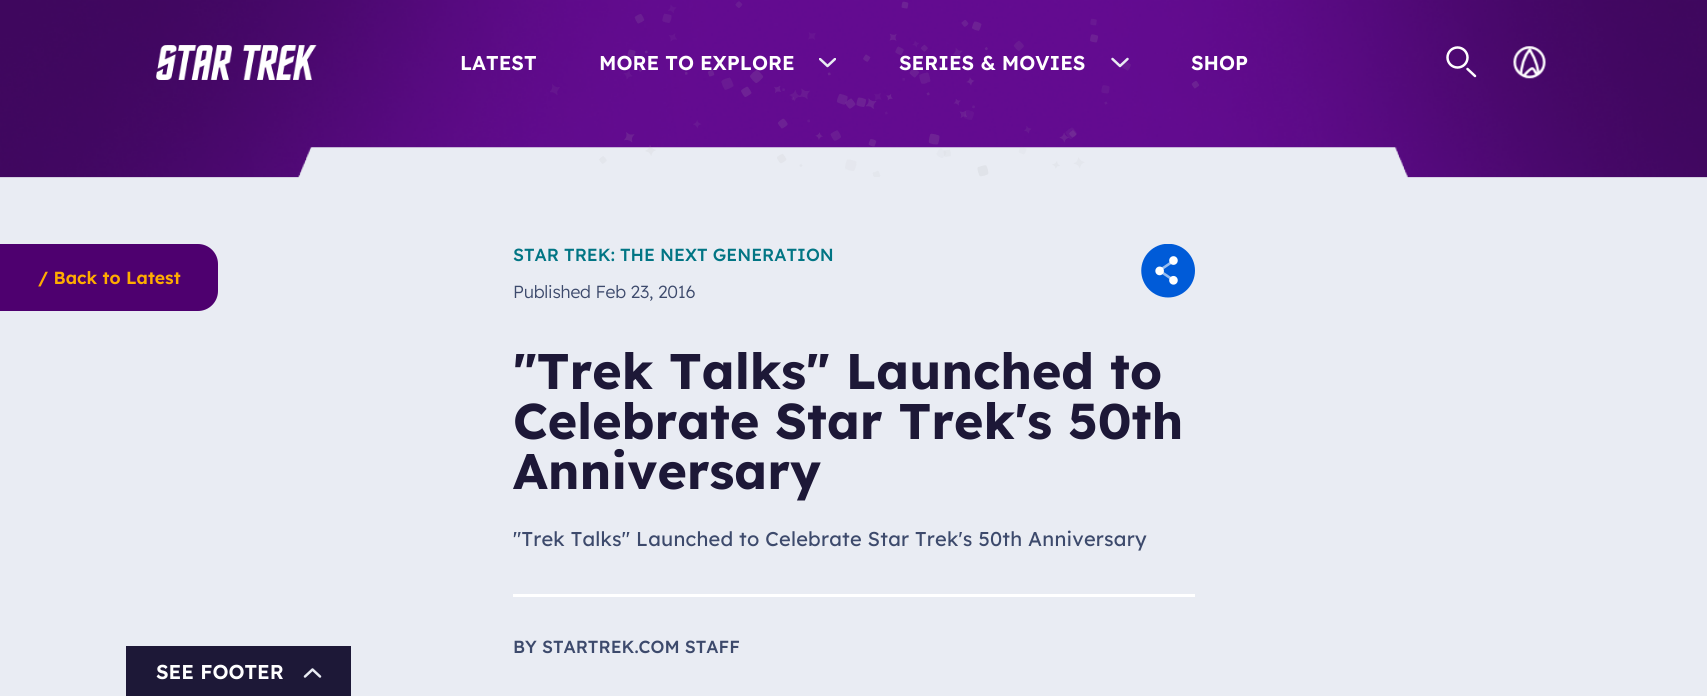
import math
import cairo

surface = cairo.ImageSurface(cairo.FORMAT_RGB24, 1707, 696)
ctx = cairo.Context(surface)
options = cairo.FontOptions()
options.set_hint_metrics(cairo.HINT_METRICS_OFF)
options.set_hint_style(cairo.HINT_STYLE_NONE)
ctx.set_font_options(options)
ctx.set_miter_limit(4)


def set_color(code):
    ctx.set_source_rgb(*(v / 255 for v in bytes.fromhex(code[-6:])))


def draw_text(x, y, s, family, size, color, bold=False, italic=False):
    ctx.select_font_face(family, cairo.FONT_SLANT_ITALIC if italic else cairo.FONT_SLANT_NORMAL, cairo.FONT_WEIGHT_BOLD if bold else cairo.FONT_WEIGHT_NORMAL)
    ctx.set_font_size(size)
    set_color(color)
    ctx.move_to(x, y)
    ctx.show_text(s)


def draw_spaced(x, y, s, letter, word):
    ctx.move_to(x, y)
    for ch in s:
        ctx.show_text(ch)
        ctx.rel_move_to(letter + word * (ch == ' '), 0)


def fill_rect(x, y, w, h, color):
    set_color(color)
    ctx.rectangle(x, y, w, h)
    ctx.fill()


def draw_image(path, x, y, w, h):
    ctx.save()
    ctx.set_source_surface(cairo.ImageSurface.create_from_png(path), x, y)
    ctx.rectangle(x, y, w, h)
    ctx.fill()
    ctx.restore()


set_color("#e9ecf3")
ctx.paint()
draw_image("assets/img1.png", 0, 0, 1707, 178)
draw_image("assets/img2.png", 550, 1, 649, 176)
draw_image("assets/img3.png", 156, 45, 161, 35)
draw_text(460, 70, "LATEST", "Lexend SemiBold", 20, "#ffffff")
draw_text(599, 70, "MORE TO EXPLORE", "Lexend SemiBold", 20, "#ffffff")
ctx.save()
ctx.rectangle(819, 58, 17, 10)
ctx.clip()
ctx.new_path()
ctx.move_to(835, 59)
ctx.line_to(827.5, 66)
ctx.line_to(820, 59)
set_color("#e9ecf3")
ctx.set_line_width(2.5)
ctx.set_line_cap(cairo.LINE_CAP_ROUND)
ctx.set_line_join(cairo.LINE_JOIN_ROUND)
ctx.stroke()
ctx.restore()
draw_text(899, 70, "SERIES & MOVIES", "Lexend SemiBold", 20, "#ffffff")
ctx.new_path()
ctx.move_to(1127.5, 59)
ctx.line_to(1120, 66)
ctx.line_to(1112.5, 59)
set_color("#e9ecf3")
ctx.set_line_width(2.5)
ctx.set_line_cap(cairo.LINE_CAP_ROUND)
ctx.set_line_join(cairo.LINE_JOIN_ROUND)
ctx.stroke()
draw_text(1191, 70, "SHOP", "Lexend SemiBold", 20, "#ffffff")
ctx.new_path()
ctx.move_to(1475, 76)
ctx.line_to(1467.5, 69)
ctx.set_line_join(cairo.LINE_JOIN_MITER)
ctx.stroke()
ctx.arc(1457.5, 57.5, 10, 0, 2 * math.pi)
ctx.set_line_cap(cairo.LINE_CAP_BUTT)
ctx.stroke()
draw_image("assets/img4.png", 1513, 46, 33, 33)
set_color("#4e006f")
ctx.new_path()
ctx.move_to(0, 244)
ctx.line_to(198, 244)
ctx.curve_to(209, 244, 218, 253, 218, 264)
ctx.line_to(218, 291)
ctx.curve_to(218, 302, 209, 311, 198, 311)
ctx.line_to(0, 311)
ctx.close_path()
ctx.fill()
draw_text(38, 284, "/ Back to Latest", "Lexend SemiBold", 17.5, "#ffac00")
draw_text(513, 261, "STAR TREK: THE NEXT GENERATION", "Lexend Medium", 17.5, "#017584")
ctx.select_font_face("Lexend Light")
set_color("#3d4a6c")
draw_spaced(513, 298, "Published Feb 23, 2016", -0.2, 0)
draw_image("assets/img5.png", 1141, 244, 54, 54)
draw_text(513, 389, "\"Trek Talks\" Launched to", "Lexend", 50, "#1d1837", bold=True)
draw_text(513, 439, "Celebrate Star Trek's 50th", "Lexend", 50, "#1d1837", bold=True)
draw_text(513, 489, "Anniversary", "Lexend", 50, "#1d1837", bold=True)
ctx.select_font_face("Lexend")
ctx.set_font_size(20)
set_color("#3d4a6c")
draw_spaced(513, 546, "\"Trek Talks\" Launched to Celebrate Star Trek's 50th Anniversary", 0.2, 0)
fill_rect(513, 594, 682, 3, "#ffffff")
draw_text(513, 653, "BY STARTREK.COM STAFF", "Lexend Medium", 17.5, "#3d4a6c")
fill_rect(126, 646, 225, 50, "#1d1837")
draw_text(156, 679, "SEE FOOTER", "Lexend SemiBold", 20, "#ffffff")
ctx.new_path()
ctx.move_to(305, 676.5)
ctx.line_to(312.5, 669.5)
ctx.line_to(320, 676.5)
set_color("#e9ecf3")
ctx.set_line_cap(cairo.LINE_CAP_ROUND)
ctx.set_line_join(cairo.LINE_JOIN_ROUND)
ctx.stroke()
surface.write_to_png("output.png")
